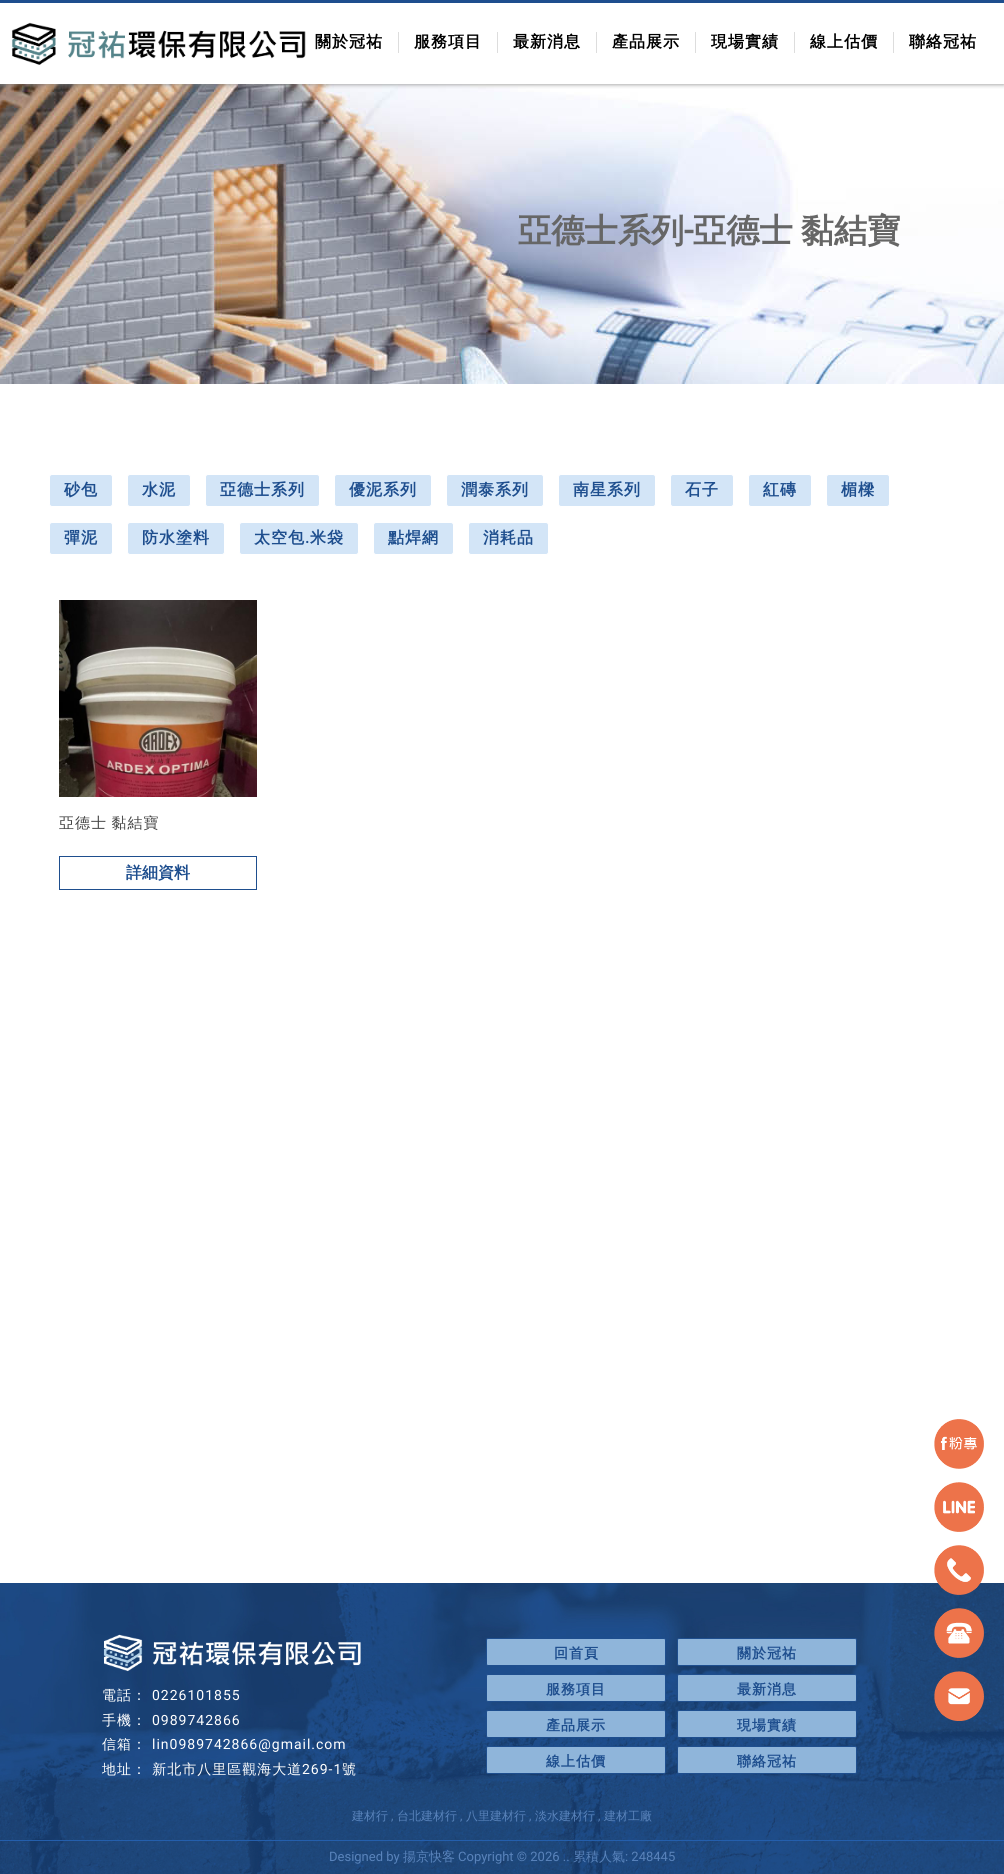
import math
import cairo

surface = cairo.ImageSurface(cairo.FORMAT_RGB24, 1004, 1874)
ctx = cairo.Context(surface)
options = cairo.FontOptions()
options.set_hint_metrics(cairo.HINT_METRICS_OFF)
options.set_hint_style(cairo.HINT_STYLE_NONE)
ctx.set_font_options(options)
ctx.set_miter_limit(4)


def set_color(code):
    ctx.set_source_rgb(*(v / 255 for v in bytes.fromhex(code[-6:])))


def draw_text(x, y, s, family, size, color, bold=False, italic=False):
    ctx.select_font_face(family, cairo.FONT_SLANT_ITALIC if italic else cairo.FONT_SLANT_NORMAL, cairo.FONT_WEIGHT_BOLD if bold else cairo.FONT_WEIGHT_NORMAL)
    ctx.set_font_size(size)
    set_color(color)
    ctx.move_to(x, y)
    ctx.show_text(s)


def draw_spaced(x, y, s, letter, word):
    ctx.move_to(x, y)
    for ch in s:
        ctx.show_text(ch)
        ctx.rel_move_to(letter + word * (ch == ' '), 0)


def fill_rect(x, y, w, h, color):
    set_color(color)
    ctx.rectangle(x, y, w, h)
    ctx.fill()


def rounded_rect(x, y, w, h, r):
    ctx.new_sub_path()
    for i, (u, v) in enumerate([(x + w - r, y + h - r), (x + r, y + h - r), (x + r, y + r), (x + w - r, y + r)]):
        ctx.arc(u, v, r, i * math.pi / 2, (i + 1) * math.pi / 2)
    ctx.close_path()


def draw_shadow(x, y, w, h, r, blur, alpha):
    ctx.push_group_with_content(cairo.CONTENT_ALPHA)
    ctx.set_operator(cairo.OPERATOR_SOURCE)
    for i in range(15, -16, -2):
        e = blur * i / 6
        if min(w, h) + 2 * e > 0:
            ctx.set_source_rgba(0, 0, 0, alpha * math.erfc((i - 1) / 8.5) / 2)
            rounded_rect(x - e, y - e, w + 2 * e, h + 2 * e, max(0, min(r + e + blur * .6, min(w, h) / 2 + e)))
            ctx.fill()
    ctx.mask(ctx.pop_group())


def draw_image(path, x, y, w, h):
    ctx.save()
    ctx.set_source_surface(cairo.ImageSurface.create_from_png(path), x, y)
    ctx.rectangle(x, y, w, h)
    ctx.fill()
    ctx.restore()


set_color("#ffffff")
ctx.paint()
draw_image("assets/img2.png", 0, 84, 1004, 300)
ctx.save()
ctx.rectangle(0, 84, 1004, 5)
ctx.clip()
set_color("#838383")
draw_shadow(0, 0, 1004, 84, 0, 2.5, 1)
ctx.restore()
fill_rect(0, 0, 1004, 3, "#1e4e8e")
draw_image("assets/img1.png", 11, 22, 295, 43)
ctx.select_font_face("WenQuanYi Zen Hei", cairo.FONT_SLANT_NORMAL, cairo.FONT_WEIGHT_BOLD)
ctx.set_font_size(16)
set_color("#000000")
draw_spaced(315, 47, "關於冠祐", 1, 0)
fill_rect(398, 32, 1, 21, "#dddddd")
set_color("#000000")
draw_spaced(414, 47, "服務項目", 1, 0)
fill_rect(497, 32, 1, 21, "#dddddd")
set_color("#000000")
draw_spaced(513, 47, "最新消息", 1, 0)
fill_rect(596, 32, 1, 21, "#dddddd")
set_color("#000000")
draw_spaced(612, 47, "產品展示", 1, 0)
fill_rect(695, 32, 1, 21, "#dddddd")
set_color("#000000")
draw_spaced(711, 47, "現場實績", 1, 0)
fill_rect(794, 32, 1, 21, "#dddddd")
set_color("#000000")
draw_spaced(810, 47, "線上估價", 1, 0)
fill_rect(893, 32, 1, 21, "#dddddd")
set_color("#000000")
draw_spaced(909, 47, "聯絡冠祐", 1, 0)
draw_text(518, 242, "亞德士系列", "WenQuanYi Zen Hei", 33.25, "#666666", bold=True)
draw_text(684, 242, "-", "Roboto", 33.25, "#666666", bold=True)
ctx.select_font_face("WenQuanYi Zen Hei", cairo.FONT_SLANT_NORMAL, cairo.FONT_WEIGHT_BOLD)
draw_spaced(693, 242, "亞德士 黏結寶", 0, -2)
set_color("#d3e5f7")
rounded_rect(49.5, 474.5, 63, 32, 2.5)
ctx.fill_preserve()
set_color("#ffffff")
ctx.set_line_width(1)
ctx.stroke()
ctx.set_font_size(16)
set_color("#1e4e8e")
draw_spaced(64, 495, "砂包", 1, 0)
set_color("#d3e5f7")
rounded_rect(127.5, 474.5, 63, 32, 2.5)
ctx.fill_preserve()
set_color("#ffffff")
ctx.stroke()
set_color("#1e4e8e")
draw_spaced(142, 495, "水泥", 1, 0)
set_color("#d3e5f7")
rounded_rect(205.5, 474.5, 114, 32, 2.5)
ctx.fill_preserve()
set_color("#ffffff")
ctx.stroke()
set_color("#1e4e8e")
draw_spaced(220, 495, "亞德士系列", 1, 0)
set_color("#d3e5f7")
rounded_rect(334.5, 474.5, 97, 32, 2.5)
ctx.fill_preserve()
set_color("#ffffff")
ctx.stroke()
set_color("#1e4e8e")
draw_spaced(349, 495, "優泥系列", 1, 0)
set_color("#d3e5f7")
rounded_rect(446.5, 474.5, 97, 32, 2.5)
ctx.fill_preserve()
set_color("#ffffff")
ctx.stroke()
set_color("#1e4e8e")
draw_spaced(461, 495, "潤泰系列", 1, 0)
set_color("#d3e5f7")
rounded_rect(558.5, 474.5, 97, 32, 2.5)
ctx.fill_preserve()
set_color("#ffffff")
ctx.stroke()
set_color("#1e4e8e")
draw_spaced(573, 495, "南星系列", 1, 0)
set_color("#d3e5f7")
rounded_rect(670.5, 474.5, 63, 32, 2.5)
ctx.fill_preserve()
set_color("#ffffff")
ctx.stroke()
set_color("#1e4e8e")
draw_spaced(685, 495, "石子", 1, 0)
set_color("#d3e5f7")
rounded_rect(748.5, 474.5, 63, 32, 2.5)
ctx.fill_preserve()
set_color("#ffffff")
ctx.stroke()
set_color("#1e4e8e")
draw_spaced(763, 495, "紅磚", 1, 0)
set_color("#d3e5f7")
rounded_rect(826.5, 474.5, 63, 32, 2.5)
ctx.fill_preserve()
set_color("#ffffff")
ctx.stroke()
set_color("#1e4e8e")
draw_spaced(841, 495, "楣樑", 1, 0)
set_color("#d3e5f7")
rounded_rect(49.5, 522.5, 63, 32, 2.5)
ctx.fill_preserve()
set_color("#ffffff")
ctx.stroke()
set_color("#1e4e8e")
draw_spaced(64, 543, "彈泥", 1, 0)
set_color("#d3e5f7")
rounded_rect(127.5, 522.5, 97, 32, 2.5)
ctx.fill_preserve()
set_color("#ffffff")
ctx.stroke()
set_color("#1e4e8e")
draw_spaced(142, 543, "防水塗料", 1, 0)
set_color("#d3e5f7")
rounded_rect(239.5, 522.5, 119, 32, 2.5)
ctx.fill_preserve()
set_color("#ffffff")
ctx.stroke()
set_color("#1e4e8e")
draw_spaced(254, 543, "太空包", 1, 0)
ctx.select_font_face("Roboto", cairo.FONT_SLANT_NORMAL, cairo.FONT_WEIGHT_BOLD)
draw_spaced(305, 543, ".", 1, 0)
ctx.select_font_face("WenQuanYi Zen Hei", cairo.FONT_SLANT_NORMAL, cairo.FONT_WEIGHT_BOLD)
draw_spaced(310, 543, "米袋", 1, 0)
set_color("#d3e5f7")
rounded_rect(373.5, 522.5, 80, 32, 2.5)
ctx.fill_preserve()
set_color("#ffffff")
ctx.stroke()
set_color("#1e4e8e")
draw_spaced(388, 543, "點焊網", 1, 0)
set_color("#d3e5f7")
rounded_rect(468.5, 522.5, 80, 32, 2.5)
ctx.fill_preserve()
set_color("#ffffff")
ctx.stroke()
set_color("#1e4e8e")
draw_spaced(483, 543, "消耗品", 1, 0)
draw_image("assets/img3.png", 59, 600, 198, 197)
ctx.select_font_face("WenQuanYi Zen Hei Medium")
ctx.set_font_size(15)
set_color("#444444")
draw_spaced(59, 828, "亞德士 黏結寶", 1, -1)
ctx.rectangle(59.5, 856.5, 197, 33)
set_color("#1e4e8e")
ctx.stroke()
draw_text(126, 878, "詳細資料", "WenQuanYi Zen Hei", 16, "#1e4e8e", bold=True)
draw_image("assets/img4.png", 0, 1583, 1004, 291)
draw_image("assets/img5.png", 103, 1634, 258, 38)
draw_image("assets/img6.png", 934, 1419, 50, 50)
draw_image("assets/img7.png", 934, 1482, 50, 50)
draw_image("assets/img8.png", 934, 1545, 50, 50)
draw_image("assets/img9.png", 934, 1608, 50, 50)
draw_image("assets/img10.png", 934, 1671, 50, 50)
ctx.select_font_face("WenQuanYi Zen Hei Medium")
ctx.set_font_size(14)
set_color("#ffffff")
draw_spaced(102, 1700, "電話：", 1, 0)
ctx.select_font_face("Roboto")
draw_spaced(152, 1700, "0226101855", 1, 0)
ctx.select_font_face("WenQuanYi Zen Hei Medium")
draw_spaced(102, 1725, "手機：", 1, 0)
ctx.select_font_face("Roboto")
draw_spaced(152, 1725, "0989742866", 1, 0)
ctx.select_font_face("WenQuanYi Zen Hei Medium")
draw_spaced(102, 1749, "信箱：", 1, 0)
ctx.select_font_face("Roboto")
draw_spaced(152, 1749, "lin0989742866@gmail.com", 1, 0)
ctx.select_font_face("WenQuanYi Zen Hei Medium")
draw_spaced(102, 1774, "地址： 新北市八里區觀海大道", 1, 0)
ctx.select_font_face("Roboto")
draw_spaced(302, 1774, "269-1", 1, 0)
ctx.select_font_face("WenQuanYi Zen Hei Medium")
draw_spaced(342, 1774, "號", 1, 0)
set_color("#8fb5da")
rounded_rect(486.5, 1638.5, 179, 27, 1.5)
ctx.fill_preserve()
set_color("#1e4e8e")
ctx.stroke()
ctx.select_font_face("WenQuanYi Zen Hei", cairo.FONT_SLANT_NORMAL, cairo.FONT_WEIGHT_BOLD)
draw_spaced(554, 1658, "回首頁", 1, 0)
set_color("#8fb5da")
rounded_rect(677.5, 1638.5, 179, 27, 1.5)
ctx.fill_preserve()
set_color("#1e4e8e")
ctx.stroke()
draw_spaced(737, 1658, "關於冠祐", 1, 0)
set_color("#8fb5da")
rounded_rect(486.5, 1674.5, 179, 27, 1.5)
ctx.fill_preserve()
set_color("#1e4e8e")
ctx.stroke()
draw_spaced(546, 1694, "服務項目", 1, 0)
set_color("#8fb5da")
rounded_rect(677.5, 1674.5, 179, 27, 1.5)
ctx.fill_preserve()
set_color("#1e4e8e")
ctx.stroke()
draw_spaced(737, 1694, "最新消息", 1, 0)
set_color("#8fb5da")
rounded_rect(486.5, 1710.5, 179, 27, 1.5)
ctx.fill_preserve()
set_color("#1e4e8e")
ctx.stroke()
draw_spaced(546, 1730, "產品展示", 1, 0)
set_color("#8fb5da")
rounded_rect(677.5, 1710.5, 179, 27, 1.5)
ctx.fill_preserve()
set_color("#1e4e8e")
ctx.stroke()
draw_spaced(737, 1730, "現場實績", 1, 0)
set_color("#8fb5da")
rounded_rect(486.5, 1746.5, 179, 27, 1.5)
ctx.fill_preserve()
set_color("#1e4e8e")
ctx.stroke()
draw_spaced(546, 1766, "線上估價", 1, 0)
set_color("#8fb5da")
rounded_rect(677.5, 1746.5, 179, 27, 1.5)
ctx.fill_preserve()
set_color("#1e4e8e")
ctx.stroke()
draw_spaced(737, 1766, "聯絡冠祐", 1, 0)
draw_text(352, 1820, "建材行", "WenQuanYi Zen Hei Medium", 12, "#5983bb")
draw_text(391, 1820, ",", "Roboto", 12, "#5983bb")
draw_text(397, 1820, "台北建材行", "WenQuanYi Zen Hei Medium", 12, "#5983bb")
draw_text(460, 1820, ",", "Roboto", 12, "#5983bb")
draw_text(466, 1820, "八里建材行", "WenQuanYi Zen Hei Medium", 12, "#5983bb")
draw_text(529, 1820, ",", "Roboto", 12, "#5983bb")
draw_text(535, 1820, "淡水建材行", "WenQuanYi Zen Hei Medium", 12, "#5983bb")
draw_text(598, 1820, ",", "Roboto", 12, "#5983bb")
draw_text(604, 1820, "建材工廠", "WenQuanYi Zen Hei Medium", 12, "#5983bb")
fill_rect(0, 1840, 1004, 1, "#245fad")
draw_text(329, 1861, "Designed by", "Roboto", 13, "#5983bb")
draw_text(403, 1861, "揚京快客", "WenQuanYi Zen Hei Medium", 13, "#5983bb")
draw_text(458, 1861, "Copyright © 2026 ..", "Roboto", 13, "#5983bb")
draw_text(573, 1861, "累積人氣", "WenQuanYi Zen Hei Medium", 13, "#5983bb")
draw_text(625, 1861, ": 248445", "Roboto", 13, "#5983bb")
surface.write_to_png("output.png")
